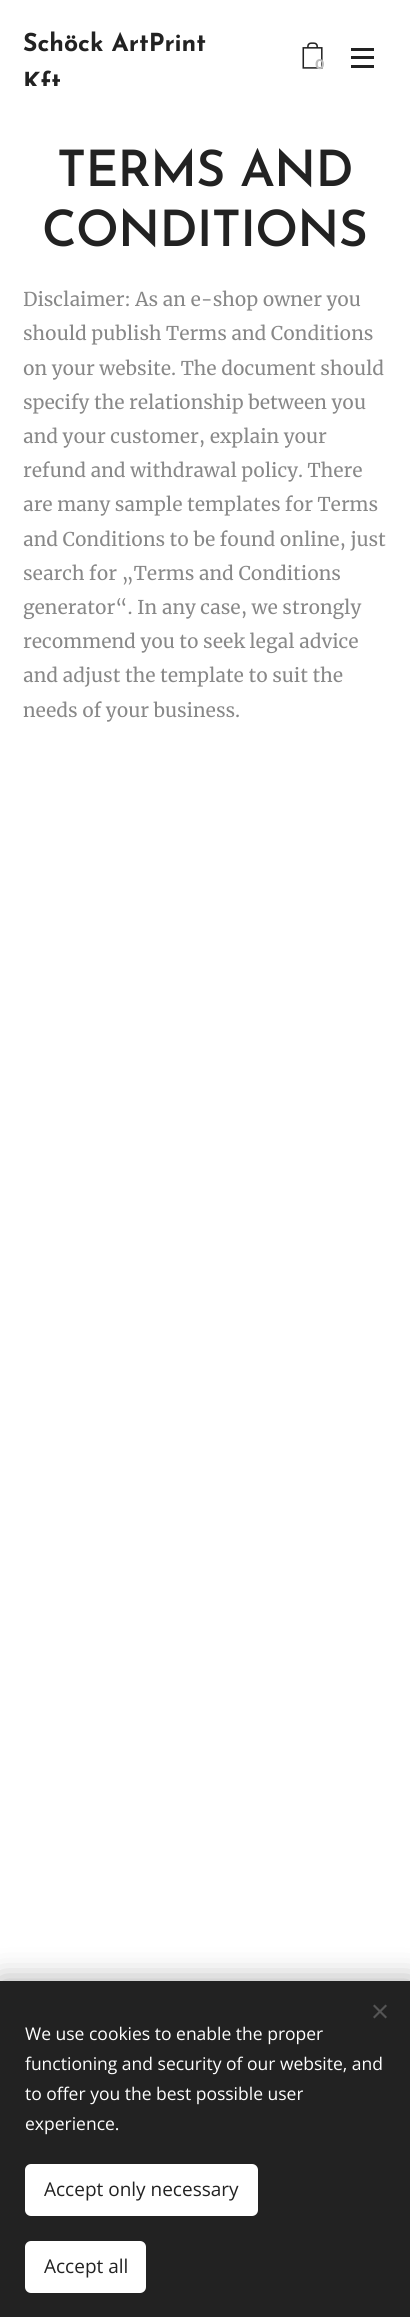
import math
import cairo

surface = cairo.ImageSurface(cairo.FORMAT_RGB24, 410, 2317)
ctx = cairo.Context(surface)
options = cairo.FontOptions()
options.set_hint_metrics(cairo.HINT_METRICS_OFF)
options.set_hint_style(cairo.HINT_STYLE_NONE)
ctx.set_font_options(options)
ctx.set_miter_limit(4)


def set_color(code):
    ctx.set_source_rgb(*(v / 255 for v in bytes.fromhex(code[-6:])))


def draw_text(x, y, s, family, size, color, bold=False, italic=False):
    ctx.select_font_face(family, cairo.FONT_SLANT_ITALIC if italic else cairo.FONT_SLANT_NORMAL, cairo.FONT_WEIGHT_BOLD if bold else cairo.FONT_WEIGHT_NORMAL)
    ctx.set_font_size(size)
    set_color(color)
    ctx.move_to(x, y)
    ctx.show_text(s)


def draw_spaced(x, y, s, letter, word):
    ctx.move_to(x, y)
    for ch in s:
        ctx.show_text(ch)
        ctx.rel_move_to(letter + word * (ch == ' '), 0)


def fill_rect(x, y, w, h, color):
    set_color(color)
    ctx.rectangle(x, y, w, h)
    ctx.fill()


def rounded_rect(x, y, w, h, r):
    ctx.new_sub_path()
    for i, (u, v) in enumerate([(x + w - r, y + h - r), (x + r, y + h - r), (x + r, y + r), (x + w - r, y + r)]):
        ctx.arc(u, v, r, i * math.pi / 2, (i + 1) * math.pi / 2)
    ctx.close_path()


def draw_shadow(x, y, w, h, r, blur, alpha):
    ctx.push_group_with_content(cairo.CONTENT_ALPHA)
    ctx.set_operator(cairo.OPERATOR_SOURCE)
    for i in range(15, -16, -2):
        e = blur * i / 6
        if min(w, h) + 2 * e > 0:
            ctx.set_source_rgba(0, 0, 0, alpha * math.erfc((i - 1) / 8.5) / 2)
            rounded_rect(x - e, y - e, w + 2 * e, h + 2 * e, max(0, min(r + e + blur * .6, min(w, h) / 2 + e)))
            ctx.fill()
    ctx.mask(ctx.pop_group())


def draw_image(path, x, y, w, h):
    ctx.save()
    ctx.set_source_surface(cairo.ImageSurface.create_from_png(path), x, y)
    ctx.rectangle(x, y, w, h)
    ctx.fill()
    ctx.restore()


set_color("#ffffff")
ctx.paint()
draw_text(23, 51, "Schöck ArtPrint", "Josefin Sans", 24.75, "#222222", bold=True)
ctx.save()
ctx.rectangle(19, 26, 237, 60)
ctx.clip()
draw_text(23, 90, "Kft", "Josefin Sans", 24.75, "#222222", bold=True)
ctx.restore()
draw_image("assets/img1.png", 302, 42, 21, 27)
draw_text(315, 69, "0", "Montserrat", 14, "#bdbdbd", bold=True)
fill_rect(351, 56, 23, 3, "#222222")
fill_rect(351, 48, 23, 3, "#222222")
fill_rect(351, 65, 23, 3, "#222222")
ctx.select_font_face("Josefin Sans SemiBold")
ctx.set_font_size(50)
draw_spaced(57, 186, "TERMS AND", -0.75, 0)
draw_spaced(42, 246, "CONDITIONS", -0.75, 0)
draw_text(23, 306, "Disclaimer: As an e-shop owner you", "Merriweather", 19, "#888888")
draw_text(23, 340, "should publish Terms and Conditions", "Merriweather", 19, "#888888")
draw_text(23, 375, "on your website. The document should", "Merriweather", 19, "#888888")
draw_text(23, 409, "specify the relationship between you", "Merriweather", 19, "#888888")
draw_text(23, 443, "and your customer, explain your", "Merriweather", 19, "#888888")
draw_text(23, 477, "refund and withdrawal policy. There", "Merriweather", 19, "#888888")
draw_text(23, 511, "are many sample templates for Terms", "Merriweather", 19, "#888888")
draw_text(23, 546, "and Conditions to be found online, just", "Merriweather", 19, "#888888")
draw_text(23, 580, "search for „Terms and Conditions", "Merriweather", 19, "#888888")
draw_text(23, 614, "generator“. In any case, we strongly", "Merriweather", 19, "#888888")
draw_text(23, 648, "recommend you to seek legal advice", "Merriweather", 19, "#888888")
draw_text(23, 682, "and adjust the template to suit the", "Merriweather", 19, "#888888")
draw_text(23, 717, "needs of your business.", "Merriweather", 19, "#888888")
set_color("#000000")
draw_shadow(0, 1981, 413, 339, 0, 15.5, 0.33)
fill_rect(0, 1981, 410, 336, "#222222")
set_color("#555555")
ctx.new_path()
ctx.move_to(373, 2017)
ctx.line_to(385.5, 2004.5)
ctx.line_to(387, 2006)
ctx.line_to(374.5, 2018.5)
ctx.close_path()
ctx.fill()
ctx.new_path()
ctx.move_to(374.5, 2004.5)
ctx.line_to(387, 2017)
ctx.line_to(385.5, 2018.5)
ctx.line_to(373, 2006)
ctx.close_path()
ctx.fill()
draw_text(25, 2040, "We use cookies to enable the proper", "Open Sans", 17.5, "#ffffff")
draw_text(25, 2070, "functioning and security of our website, and", "Open Sans", 17.5, "#ffffff")
draw_text(25, 2100, "to offer you the best possible user", "Open Sans", 17.5, "#ffffff")
draw_text(25, 2130, "experience.", "Open Sans", 17.5, "#ffffff")
rounded_rect(25, 2164, 233, 52, 6)
ctx.fill()
draw_text(44, 2196, "Accept only necessary", "Open Sans", 19, "#222222")
set_color("#ffffff")
rounded_rect(25, 2241, 121, 52, 6)
ctx.fill()
draw_text(44, 2273, "Accept all", "Open Sans", 19, "#222222")
surface.write_to_png("output.png")
